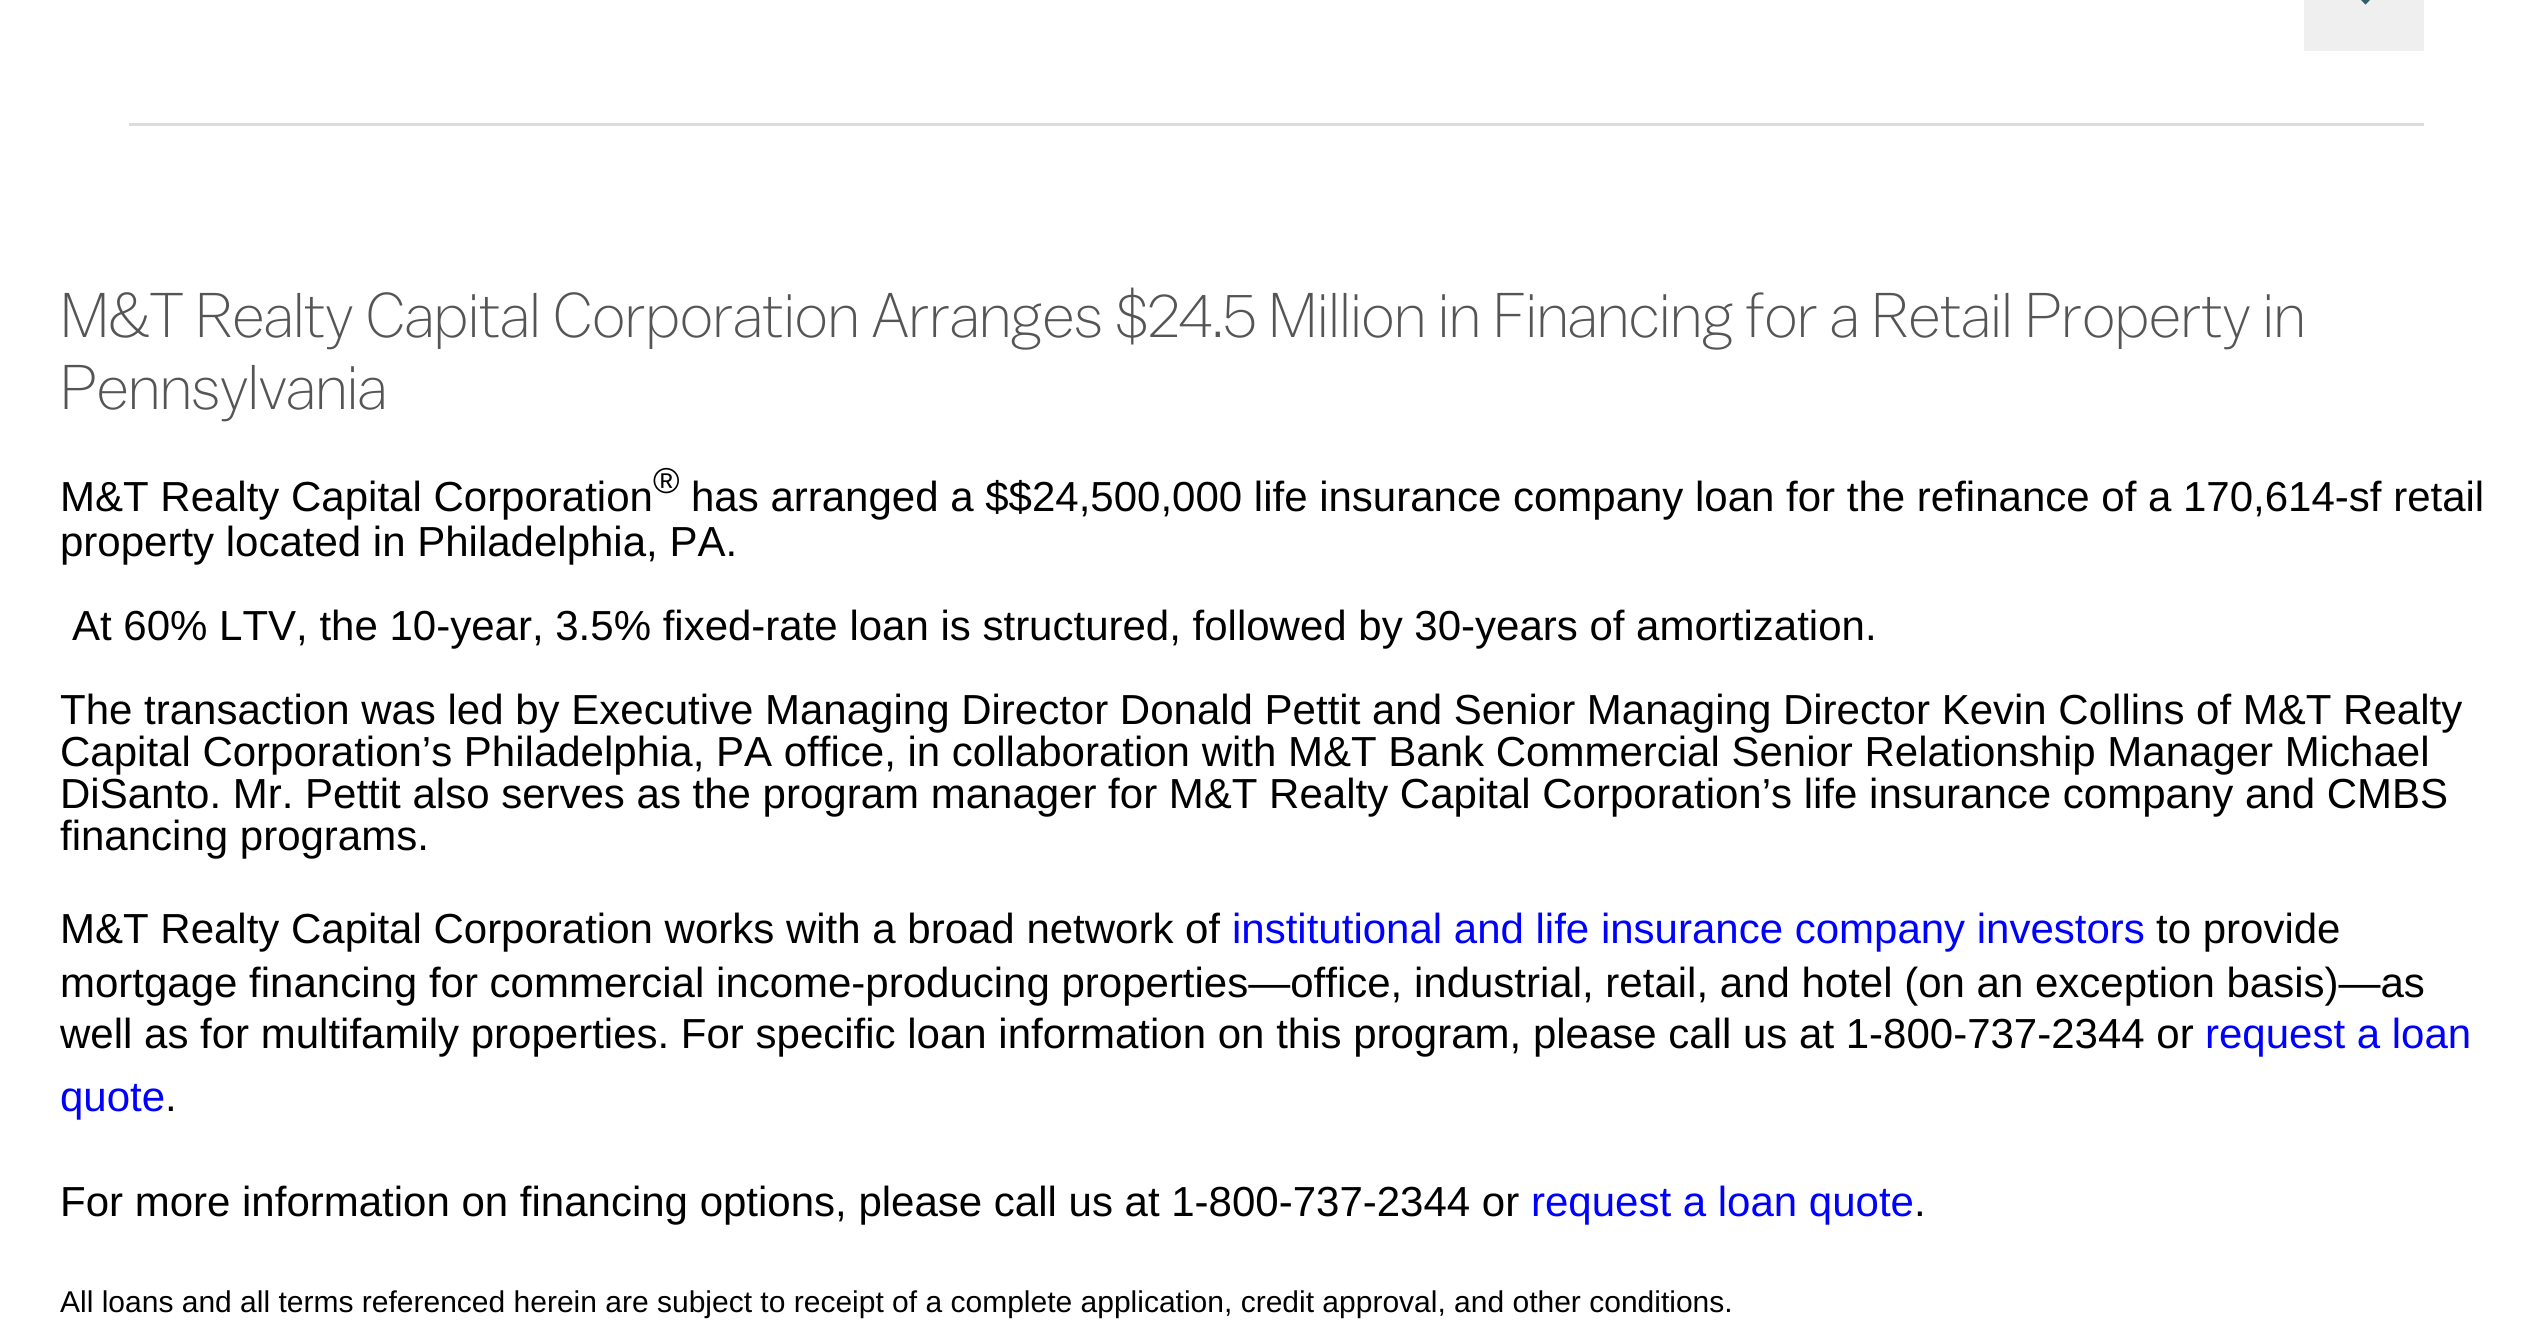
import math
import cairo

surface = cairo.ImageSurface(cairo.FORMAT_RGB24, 2548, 1322)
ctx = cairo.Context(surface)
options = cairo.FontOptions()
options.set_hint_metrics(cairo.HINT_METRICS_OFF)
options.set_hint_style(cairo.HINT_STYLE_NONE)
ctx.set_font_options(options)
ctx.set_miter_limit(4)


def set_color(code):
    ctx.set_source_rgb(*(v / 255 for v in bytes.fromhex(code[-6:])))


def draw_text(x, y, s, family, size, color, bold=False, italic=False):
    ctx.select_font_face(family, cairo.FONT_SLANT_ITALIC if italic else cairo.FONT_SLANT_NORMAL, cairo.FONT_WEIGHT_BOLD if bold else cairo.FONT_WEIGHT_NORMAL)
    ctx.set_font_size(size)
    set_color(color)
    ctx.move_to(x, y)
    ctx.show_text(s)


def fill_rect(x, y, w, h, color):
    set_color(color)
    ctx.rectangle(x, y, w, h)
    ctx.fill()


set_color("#ffffff")
ctx.paint()
fill_rect(129, 123, 2295, 3, "#dcdcdc")
fill_rect(2304, 0, 120, 51, "#efefef")
set_color("#2f5f6c")
ctx.new_path()
ctx.move_to(2378, -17)
ctx.line_to(2382.5, -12.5)
ctx.line_to(2365.5, 4.5)
ctx.line_to(2361.5, 0)
ctx.close_path()
ctx.fill()
ctx.new_path()
ctx.move_to(2353, -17)
ctx.line_to(2369.5, 0)
ctx.line_to(2365.5, 4.5)
ctx.line_to(2348.5, -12.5)
ctx.close_path()
ctx.fill()
draw_text(60, 337, "M&T Realty Capital Corporation Arranges $24.5 Million in Financing for a Retail Property in", "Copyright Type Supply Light", 63, "#555555")
draw_text(60, 409, "Pennsylvania", "Copyright Type Supply Light", 63, "#555555")
draw_text(60, 511, "M&T Realty Capital Corporation", "Liberation Sans", 42, "#000000")
draw_text(653, 493, "®", "Liberation Sans", 36, "#000000")
draw_text(691, 511, "has arranged a $$24,500,000 life insurance company loan for the refinance of a 170,614-sf retail", "Liberation Sans", 42, "#000000")
draw_text(60, 556, "property located in Philadelphia, PA.", "Liberation Sans", 42, "#000000")
draw_text(72, 640, "At 60% LTV, the 10-year, 3.5% fixed-rate loan is structured, followed by 30-years of amortization.", "Liberation Sans", 42, "#000000")
draw_text(60, 724, "The transaction was led by Executive Managing Director Donald Pettit and Senior Managing Director Kevin Collins of M&T Realty", "Liberation Sans", 42, "#000000")
draw_text(60, 766, "Capital Corporation’s Philadelphia, PA office, in collaboration with M&T Bank Commercial Senior Relationship Manager Michael", "Liberation Sans", 42, "#000000")
draw_text(60, 808, "DiSanto. Mr. Pettit also serves as the program manager for M&T Realty Capital Corporation’s life insurance company and CMBS", "Liberation Sans", 42, "#000000")
draw_text(60, 850, "financing programs.", "Liberation Sans", 42, "#000000")
draw_text(60, 943, "M&T Realty Capital Corporation works with a broad network of", "Liberation Sans", 42, "#000000")
draw_text(1232, 943, "institutional and life insurance company investors", "Liberation Sans", 42, "#0000ff")
draw_text(2156, 943, "to provide", "Liberation Sans", 42, "#000000")
draw_text(60, 997, "mortgage financing for commercial income-producing properties—office, industrial, retail, and hotel (on an exception basis)—as", "Liberation Sans", 42, "#000000")
draw_text(60, 1048, "well as for multifamily properties. For specific loan information on this program, please call us at 1-800-737-2344 or", "Liberation Sans", 42, "#000000")
draw_text(2205, 1048, "request a loan", "Liberation Sans", 42, "#0000ff")
draw_text(60, 1111, "quote", "Liberation Sans", 42, "#0000ff")
draw_text(165, 1111, ".", "Liberation Sans", 42, "#000000")
draw_text(60, 1216, "For more information on financing options, please call us at 1-800-737-2344 or", "Liberation Sans", 42, "#000000")
draw_text(1531, 1216, "request a loan quote", "Liberation Sans", 42, "#0000ff")
draw_text(1914, 1216, ".", "Liberation Sans", 42, "#000000")
draw_text(60, 1312, "All loans and all terms referenced herein are subject to receipt of a complete application, credit approval, and other conditions.", "Liberation Sans", 30, "#000000")
surface.write_to_png("output.png")
